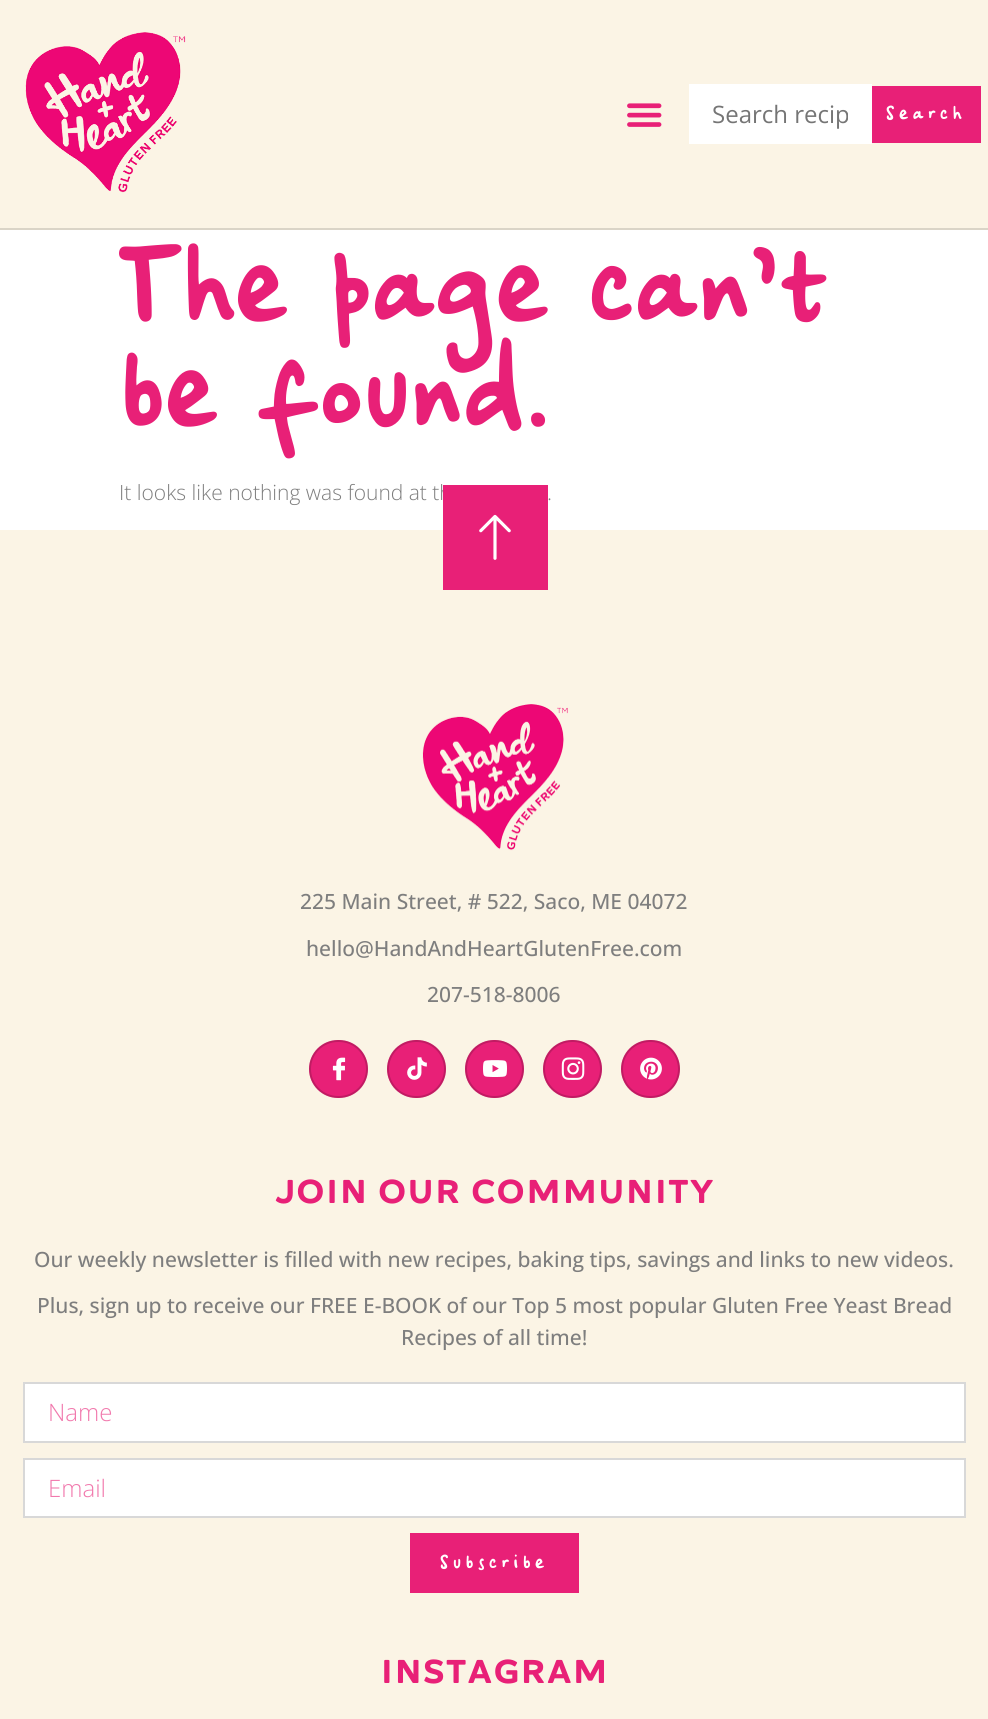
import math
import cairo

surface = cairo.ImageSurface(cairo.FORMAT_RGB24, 988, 1719)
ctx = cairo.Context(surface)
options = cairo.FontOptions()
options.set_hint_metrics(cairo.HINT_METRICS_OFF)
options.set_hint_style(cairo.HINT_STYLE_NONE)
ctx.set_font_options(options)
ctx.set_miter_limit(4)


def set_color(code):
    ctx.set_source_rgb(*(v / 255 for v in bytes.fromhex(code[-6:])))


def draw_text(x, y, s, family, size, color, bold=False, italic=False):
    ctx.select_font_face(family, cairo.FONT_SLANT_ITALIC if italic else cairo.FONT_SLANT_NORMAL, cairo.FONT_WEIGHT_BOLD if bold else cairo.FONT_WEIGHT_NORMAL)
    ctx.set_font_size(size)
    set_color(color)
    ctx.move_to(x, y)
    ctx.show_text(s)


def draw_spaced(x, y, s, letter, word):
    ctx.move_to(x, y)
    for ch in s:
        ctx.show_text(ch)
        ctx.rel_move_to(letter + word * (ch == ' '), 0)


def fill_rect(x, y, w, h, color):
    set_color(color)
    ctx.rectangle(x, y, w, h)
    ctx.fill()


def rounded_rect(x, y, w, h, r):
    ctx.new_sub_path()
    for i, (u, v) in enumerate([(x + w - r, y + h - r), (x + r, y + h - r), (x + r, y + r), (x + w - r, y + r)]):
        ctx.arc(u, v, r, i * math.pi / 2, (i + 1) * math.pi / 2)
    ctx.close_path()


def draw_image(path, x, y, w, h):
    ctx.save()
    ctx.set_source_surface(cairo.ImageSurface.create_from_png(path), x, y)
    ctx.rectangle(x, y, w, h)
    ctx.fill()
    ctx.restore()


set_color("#ffffff")
ctx.paint()
fill_rect(0, 0, 988, 228, "#fbf4e5")
fill_rect(0, 228, 988, 2, "#dad4c7")
draw_image("assets/img1.png", 25, 32, 161, 161)
draw_image("assets/img2.png", 627, 103, 35, 24)
fill_rect(689, 84, 183, 60, "#ffffff")
ctx.save()
ctx.rectangle(713, 98, 135, 33)
ctx.clip()
draw_text(712, 123, "Search recip", "Open Sans", 24, "#757575")
ctx.restore()
fill_rect(872, 86, 109, 57, "#e82077")
ctx.select_font_face("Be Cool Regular")
ctx.set_font_size(18)
set_color("#ffffff")
draw_spaced(886, 119, "Search", 4.5, 0)
draw_text(119, 320, "The page can’t", "Be Cool Regular", 105, "#e82077")
draw_text(119, 425, "be found.", "Be Cool Regular", 105, "#e82077")
draw_text(119, 500, "It looks like nothing was found at th", "Open Sans Light", 21, "#7e7e7e")
draw_text(547, 500, ".", "Open Sans Light", 21, "#7e7e7e")
fill_rect(0, 530, 988, 1189, "#fbf4e5")
fill_rect(443, 485, 105, 105, "#e82077")
draw_image("assets/img3.png", 479, 514, 32, 46)
draw_image("assets/img4.png", 422, 704, 146, 147)
draw_text(300, 909, "225 Main Street, # 522, Saco, ME 04072", "Open Sans Medium", 21, "#7e7e7e")
draw_text(306, 956, "hello@HandAndHeartGlutenFree.com", "Open Sans Medium", 21, "#7e7e7e")
draw_text(427, 1002, "207-518-8006", "Open Sans Medium", 21, "#7e7e7e")
set_color("#e82077")
rounded_rect(309, 1040, 59, 58, 29)
ctx.fill()
rounded_rect(310, 1041, 57, 56, 28)
ctx.set_source_rgba(0, 0, 0, 0.17)
ctx.stroke()
draw_image("assets/img5.png", 332, 1057, 14, 24)
set_color("#e82077")
rounded_rect(387, 1040, 59, 58, 29)
ctx.fill()
rounded_rect(388, 1041, 57, 56, 28)
ctx.set_source_rgba(0, 0, 0, 0.17)
ctx.stroke()
draw_image("assets/img6.png", 407, 1057, 20, 23)
set_color("#e82077")
rounded_rect(465, 1040, 59, 58, 29)
ctx.fill()
rounded_rect(466, 1041, 57, 56, 28)
ctx.set_source_rgba(0, 0, 0, 0.17)
ctx.stroke()
draw_image("assets/img7.png", 483, 1060, 24, 17)
set_color("#e82077")
rounded_rect(543, 1040, 59, 58, 29)
ctx.fill()
rounded_rect(544, 1041, 57, 56, 28)
ctx.set_source_rgba(0, 0, 0, 0.17)
ctx.stroke()
draw_image("assets/img8.png", 561, 1057, 24, 23)
set_color("#e82077")
rounded_rect(621, 1040, 59, 58, 29)
ctx.fill()
rounded_rect(622, 1041, 57, 56, 28)
ctx.set_source_rgba(0, 0, 0, 0.17)
ctx.stroke()
draw_image("assets/img9.png", 640, 1057, 22, 23)
draw_text(275, 1203, "JOIN OUR COMMUNITY", "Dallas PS", 33, "#e82077")
draw_text(34, 1267, "Our weekly newsletter is filled with new recipes, baking tips, savings and links to new videos.", "Open Sans Medium", 21, "#7e7e7e")
draw_text(37, 1313, "Plus, sign up to receive our FREE E-BOOK of our Top 5 most popular Gluten Free Yeast Bread", "Open Sans Medium", 21, "#7e7e7e")
draw_text(401, 1345, "Recipes of all time!", "Open Sans Medium", 21, "#7e7e7e")
set_color("#ffffff")
ctx.rectangle(24, 1383, 941, 59)
ctx.fill_preserve()
set_color("#d8d8d8")
ctx.stroke()
draw_text(48, 1421, "Name", "Open Sans Light", 24, "#f179ad")
set_color("#ffffff")
ctx.rectangle(24, 1459, 941, 58)
ctx.fill_preserve()
set_color("#d8d8d8")
ctx.stroke()
draw_text(48, 1497, "Email", "Open Sans Light", 24, "#f179ad")
fill_rect(410, 1533, 169, 60, "#e82077")
ctx.select_font_face("Be Cool Regular")
ctx.set_font_size(18)
set_color("#ffffff")
draw_spaced(440, 1568, "Subscribe", 4.5, 0)
draw_text(380, 1683, "Instagram", "Dallas PS", 33, "#e82077")
surface.write_to_png("output.png")
